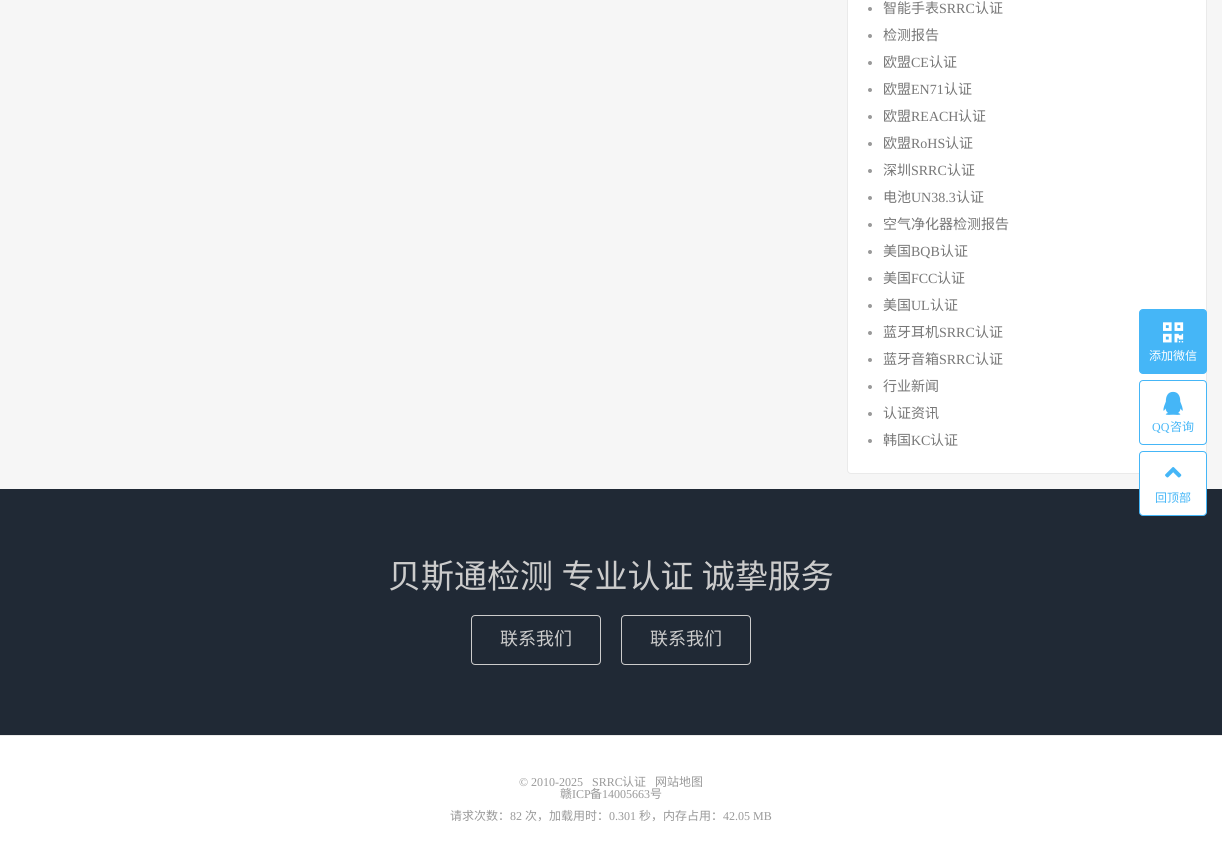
import math
import cairo

surface = cairo.ImageSurface(cairo.FORMAT_RGB24, 1222, 862)
ctx = cairo.Context(surface)
options = cairo.FontOptions()
options.set_hint_metrics(cairo.HINT_METRICS_OFF)
options.set_hint_style(cairo.HINT_STYLE_NONE)
ctx.set_font_options(options)
ctx.set_miter_limit(4)


def set_color(code):
    ctx.set_source_rgb(*(v / 255 for v in bytes.fromhex(code[-6:])))


def draw_text(x, y, s, family, size, color, bold=False, italic=False):
    ctx.select_font_face(family, cairo.FONT_SLANT_ITALIC if italic else cairo.FONT_SLANT_NORMAL, cairo.FONT_WEIGHT_BOLD if bold else cairo.FONT_WEIGHT_NORMAL)
    ctx.set_font_size(size)
    set_color(color)
    ctx.move_to(x, y)
    ctx.show_text(s)


def draw_spaced(x, y, s, letter, word):
    ctx.move_to(x, y)
    for ch in s:
        ctx.show_text(ch)
        ctx.rel_move_to(letter + word * (ch == ' '), 0)


def fill_rect(x, y, w, h, color):
    set_color(color)
    ctx.rectangle(x, y, w, h)
    ctx.fill()


def rounded_rect(x, y, w, h, r):
    ctx.new_sub_path()
    for i, (u, v) in enumerate([(x + w - r, y + h - r), (x + r, y + h - r), (x + r, y + r), (x + w - r, y + r)]):
        ctx.arc(u, v, r, i * math.pi / 2, (i + 1) * math.pi / 2)
    ctx.close_path()


def draw_image(path, x, y, w, h):
    ctx.save()
    ctx.set_source_surface(cairo.ImageSurface.create_from_png(path), x, y)
    ctx.rectangle(x, y, w, h)
    ctx.fill()
    ctx.restore()


set_color("#f6f6f6")
ctx.paint()
set_color("#ffffff")
rounded_rect(847.5, -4.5, 359, 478, 3.5)
ctx.fill_preserve()
set_color("#eaeaea")
ctx.set_line_width(1)
ctx.stroke()
set_color("#999999")
ctx.arc(870, 9, 2, 0, 2 * math.pi)
ctx.fill()
draw_text(883, 13, "智能手表", "Noto Sans CJK SC", 14, "#777777")
draw_text(939, 13, "SRRC", "Liberation Serif", 14, "#777777")
draw_text(975, 13, "认证", "Noto Sans CJK SC", 14, "#777777")
set_color("#999999")
ctx.new_path()
ctx.arc(870, 36, 2, 0, 2 * math.pi)
ctx.fill()
draw_text(883, 40, "检测报告", "Noto Sans CJK SC", 14, "#777777")
set_color("#999999")
ctx.new_path()
ctx.arc(870, 63, 2, 0, 2 * math.pi)
ctx.fill()
draw_text(883, 67, "欧盟", "Noto Sans CJK SC", 14, "#777777")
draw_text(911, 67, "CE", "Liberation Serif", 14, "#777777")
draw_text(929, 67, "认证", "Noto Sans CJK SC", 14, "#777777")
set_color("#999999")
ctx.new_path()
ctx.arc(870, 90, 2, 0, 2 * math.pi)
ctx.fill()
draw_text(883, 94, "欧盟", "Noto Sans CJK SC", 14, "#777777")
draw_text(911, 94, "EN71", "Liberation Serif", 14, "#777777")
draw_text(944, 94, "认证", "Noto Sans CJK SC", 14, "#777777")
set_color("#999999")
ctx.new_path()
ctx.arc(870, 117, 2, 0, 2 * math.pi)
ctx.fill()
draw_text(883, 121, "欧盟", "Noto Sans CJK SC", 14, "#777777")
draw_text(911, 121, "REACH", "Liberation Serif", 14, "#777777")
draw_text(958, 121, "认证", "Noto Sans CJK SC", 14, "#777777")
set_color("#999999")
ctx.new_path()
ctx.arc(870, 144, 2, 0, 2 * math.pi)
ctx.fill()
draw_text(883, 148, "欧盟", "Noto Sans CJK SC", 14, "#777777")
draw_text(911, 148, "RoHS", "Liberation Serif", 14, "#777777")
draw_text(945, 148, "认证", "Noto Sans CJK SC", 14, "#777777")
set_color("#999999")
ctx.new_path()
ctx.arc(870, 171, 2, 0, 2 * math.pi)
ctx.fill()
draw_text(883, 175, "深圳", "Noto Sans CJK SC", 14, "#777777")
draw_text(911, 175, "SRRC", "Liberation Serif", 14, "#777777")
draw_text(947, 175, "认证", "Noto Sans CJK SC", 14, "#777777")
set_color("#999999")
ctx.new_path()
ctx.arc(870, 198, 2, 0, 2 * math.pi)
ctx.fill()
draw_text(883, 202, "电池", "Noto Sans CJK SC", 14, "#777777")
draw_text(911, 202, "UN38.3", "Liberation Serif", 14, "#777777")
draw_text(956, 202, "认证", "Noto Sans CJK SC", 14, "#777777")
set_color("#999999")
ctx.new_path()
ctx.arc(870, 225, 2, 0, 2 * math.pi)
ctx.fill()
draw_text(883, 229, "空气净化器检测报告", "Noto Sans CJK SC", 14, "#777777")
set_color("#999999")
ctx.new_path()
ctx.arc(870, 252, 2, 0, 2 * math.pi)
ctx.fill()
draw_text(883, 256, "美国", "Noto Sans CJK SC", 14, "#777777")
draw_text(911, 256, "BQB", "Liberation Serif", 14, "#777777")
draw_text(940, 256, "认证", "Noto Sans CJK SC", 14, "#777777")
set_color("#999999")
ctx.new_path()
ctx.arc(870, 279, 2, 0, 2 * math.pi)
ctx.fill()
draw_text(883, 283, "美国", "Noto Sans CJK SC", 14, "#777777")
draw_text(911, 283, "FCC", "Liberation Serif", 14, "#777777")
draw_text(937, 283, "认证", "Noto Sans CJK SC", 14, "#777777")
set_color("#999999")
ctx.new_path()
ctx.arc(870, 306, 2, 0, 2 * math.pi)
ctx.fill()
draw_text(883, 310, "美国", "Noto Sans CJK SC", 14, "#777777")
draw_text(911, 310, "UL", "Liberation Serif", 14, "#777777")
draw_text(930, 310, "认证", "Noto Sans CJK SC", 14, "#777777")
set_color("#999999")
ctx.new_path()
ctx.arc(870, 333, 2, 0, 2 * math.pi)
ctx.fill()
draw_text(883, 337, "蓝牙耳机", "Noto Sans CJK SC", 14, "#777777")
draw_text(939, 337, "SRRC", "Liberation Serif", 14, "#777777")
draw_text(975, 337, "认证", "Noto Sans CJK SC", 14, "#777777")
set_color("#999999")
ctx.new_path()
ctx.arc(870, 360, 2, 0, 2 * math.pi)
ctx.fill()
draw_text(883, 364, "蓝牙音箱", "Noto Sans CJK SC", 14, "#777777")
draw_text(939, 364, "SRRC", "Liberation Serif", 14, "#777777")
draw_text(975, 364, "认证", "Noto Sans CJK SC", 14, "#777777")
set_color("#999999")
ctx.new_path()
ctx.arc(870, 387, 2, 0, 2 * math.pi)
ctx.fill()
draw_text(883, 391, "行业新闻", "Noto Sans CJK SC", 14, "#777777")
set_color("#999999")
ctx.new_path()
ctx.arc(870, 414, 2, 0, 2 * math.pi)
ctx.fill()
draw_text(883, 418, "认证资讯", "Noto Sans CJK SC", 14, "#777777")
set_color("#999999")
ctx.new_path()
ctx.arc(870, 441, 2, 0, 2 * math.pi)
ctx.fill()
draw_text(883, 445, "韩国", "Noto Sans CJK SC", 14, "#777777")
draw_text(911, 445, "KC", "Liberation Serif", 14, "#777777")
draw_text(930, 445, "认证", "Noto Sans CJK SC", 14, "#777777")
set_color("#45b6f7")
rounded_rect(1139.5, 309.5, 67, 64, 3.5)
ctx.fill_preserve()
ctx.stroke()
draw_image("assets/img1.png", 1163, 322, 21, 21)
draw_text(1149, 360, "添加微信", "Noto Sans CJK SC", 12, "#ffffff")
rounded_rect(1139.5, 380.5, 67, 64, 3.5)
ctx.fill_preserve()
set_color("#45b6f7")
ctx.stroke()
draw_image("assets/img2.png", 1163, 391, 20, 24)
draw_text(1152, 431, "QQ", "Liberation Serif", 12, "#45b6f7")
draw_text(1170, 431, "咨询", "Noto Sans CJK SC", 12, "#45b6f7")
fill_rect(0, 489, 1222, 246, "#202935")
set_color("#ffffff")
rounded_rect(1139.5, 451.5, 67, 64, 3.5)
ctx.fill_preserve()
set_color("#45b6f7")
ctx.stroke()
draw_image("assets/img3.png", 1165, 467, 17, 11)
draw_text(1155, 502, "回顶部", "Noto Sans CJK SC", 12, "#45b6f7")
ctx.set_font_size(33)
set_color("#cccccc")
draw_spaced(388, 588, "贝斯通检测 专业认证 诚挚服务", 0, 1)
rounded_rect(471.5, 615.5, 129, 49, 3.5)
ctx.stroke()
draw_text(500, 645, "联系我们", "Noto Sans CJK SC", 18, "#cccccc")
rounded_rect(621.5, 615.5, 129, 49, 3.5)
ctx.stroke()
draw_text(650, 645, "联系我们", "Noto Sans CJK SC", 18, "#cccccc")
fill_rect(0, 736, 1222, 126, "#ffffff")
fill_rect(0, 735, 1222, 1, "#eaeaea")
draw_text(519, 786, "© 2010-2025", "Liberation Serif", 12, "#999999")
draw_text(592, 786, "SRRC", "Liberation Serif", 12, "#999999")
draw_text(622, 786, "认证", "Noto Sans CJK SC", 12, "#999999")
draw_text(655, 786, "网站地图", "Noto Sans CJK SC", 12, "#999999")
draw_text(560, 798, "赣", "Noto Sans CJK SC", 12, "#999999")
draw_text(572, 798, "ICP", "Liberation Serif", 12, "#999999")
draw_text(590, 798, "备", "Noto Sans CJK SC", 12, "#999999")
draw_text(602, 798, "14005663", "Liberation Serif", 12, "#999999")
draw_text(650, 798, "号", "Noto Sans CJK SC", 12, "#999999")
draw_text(450, 820, "请求次数：", "Noto Sans CJK SC", 12, "#999999")
draw_text(510, 820, "82", "Liberation Serif", 12, "#999999")
draw_text(525, 820, "次，加载用时：", "Noto Sans CJK SC", 12, "#999999")
draw_text(609, 820, "0.301", "Liberation Serif", 12, "#999999")
draw_text(639, 820, "秒，内存占用：", "Noto Sans CJK SC", 12, "#999999")
draw_text(723, 820, "42.05 MB", "Liberation Serif", 12, "#999999")
surface.write_to_png("output.png")
